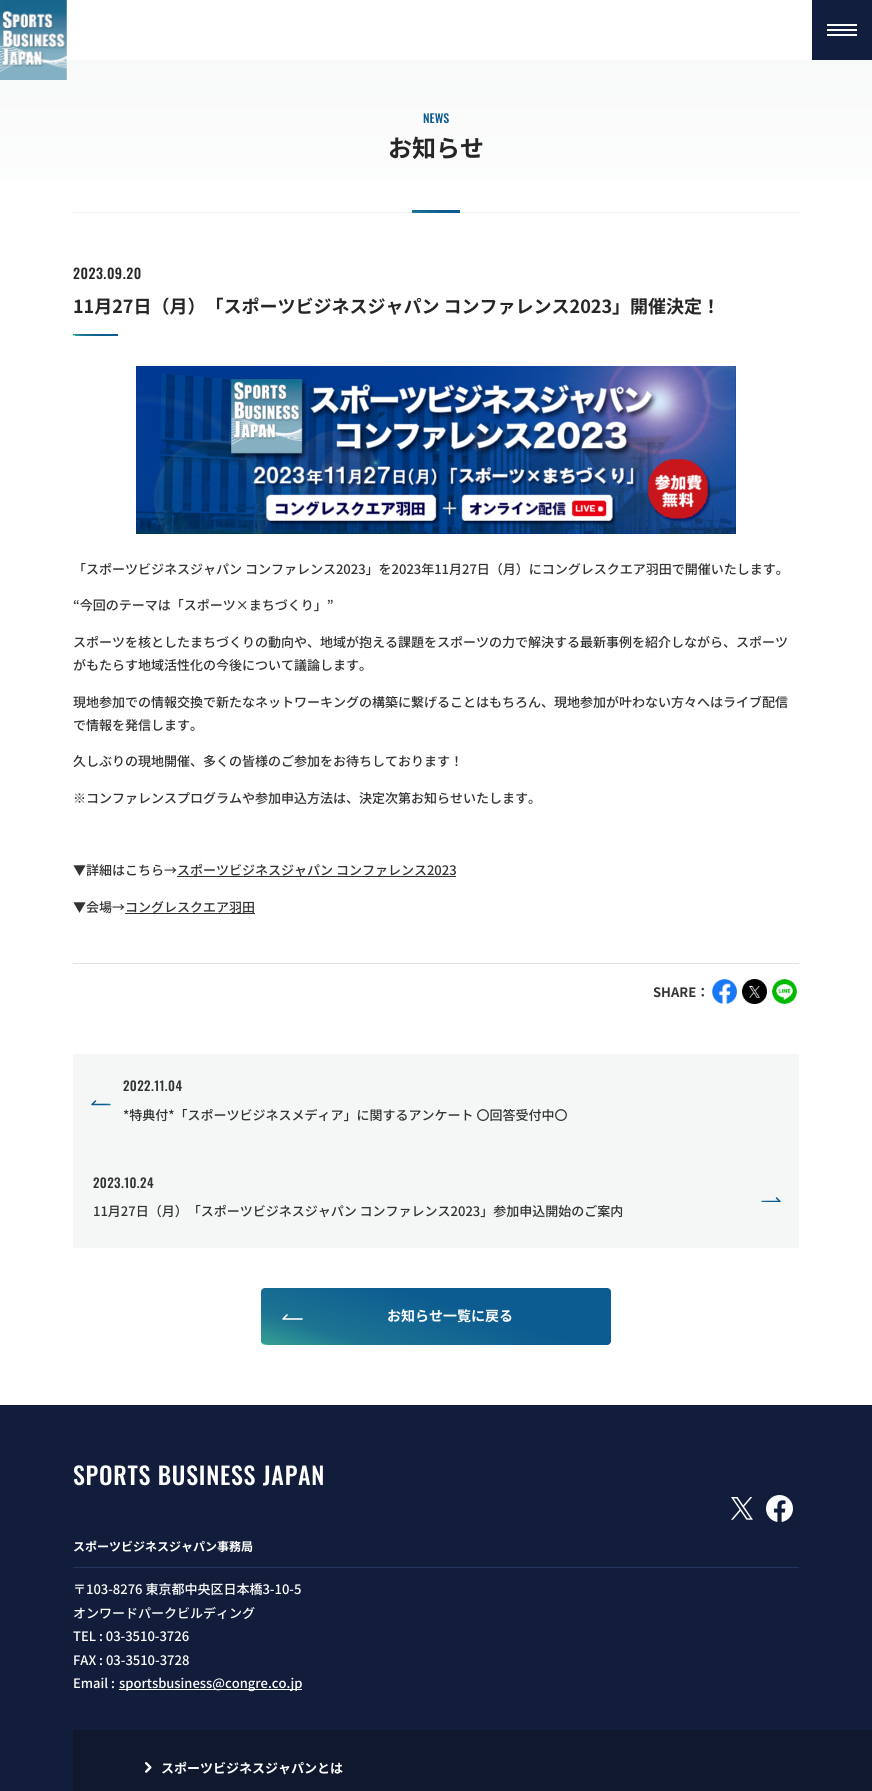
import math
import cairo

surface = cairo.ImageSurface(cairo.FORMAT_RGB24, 872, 1791)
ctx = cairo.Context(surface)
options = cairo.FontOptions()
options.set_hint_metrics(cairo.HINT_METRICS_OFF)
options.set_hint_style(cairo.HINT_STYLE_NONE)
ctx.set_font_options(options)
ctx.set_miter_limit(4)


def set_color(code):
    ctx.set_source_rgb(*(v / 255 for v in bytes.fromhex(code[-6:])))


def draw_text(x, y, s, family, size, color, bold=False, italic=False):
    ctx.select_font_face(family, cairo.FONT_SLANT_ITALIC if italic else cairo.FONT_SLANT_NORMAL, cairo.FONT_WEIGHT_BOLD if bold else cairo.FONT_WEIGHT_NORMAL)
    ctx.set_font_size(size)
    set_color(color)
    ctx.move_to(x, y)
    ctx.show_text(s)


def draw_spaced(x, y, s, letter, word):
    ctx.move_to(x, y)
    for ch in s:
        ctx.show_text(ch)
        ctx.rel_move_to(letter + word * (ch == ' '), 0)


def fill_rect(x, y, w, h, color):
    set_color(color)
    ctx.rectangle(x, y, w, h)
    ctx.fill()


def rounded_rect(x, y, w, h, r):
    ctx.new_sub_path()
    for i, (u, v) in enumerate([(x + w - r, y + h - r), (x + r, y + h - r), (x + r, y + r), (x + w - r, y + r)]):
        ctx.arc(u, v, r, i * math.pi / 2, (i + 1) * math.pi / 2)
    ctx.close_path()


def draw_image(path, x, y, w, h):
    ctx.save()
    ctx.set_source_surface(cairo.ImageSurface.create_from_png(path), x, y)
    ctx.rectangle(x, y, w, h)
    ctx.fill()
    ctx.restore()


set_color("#ffffff")
ctx.paint()
gradient = cairo.LinearGradient(436, 243, 436, 60)
gradient.add_color_stop_rgba(0, 1, 1, 1, 1)
gradient.add_color_stop_rgba(1, 0.973, 0.976, 0.976, 1)
ctx.set_source(gradient)
ctx.rectangle(0, 60, 872, 118)
ctx.fill()
draw_image("assets/img1.png", 0, 0, 67, 80)
fill_rect(812, 0, 60, 60, "#121e3d")
fill_rect(827, 24, 30, 2, "#ffffff")
fill_rect(827, 29, 30, 2, "#ffffff")
fill_rect(827, 34, 30, 2, "#ffffff")
draw_text(423, 123, "NEWS", "Oswald Medium", 12, "#0d5c91")
draw_text(388, 157, "お知らせ", "Noto Sans JP", 24, "#262626", bold=True)
fill_rect(73, 212, 727, 1, "#f0f3f5")
gradient = cairo.LinearGradient(434, 220, 438, 203)
gradient.add_color_stop_rgba(0, 0.435, 1, 0.604, 1)
gradient.add_color_stop_rgba(0.01, 0.204, 0.616, 0.584, 1)
gradient.add_color_stop_rgba(0.2, 0.11, 0.455, 0.573, 1)
gradient.add_color_stop_rgba(0.4, 0.078, 0.408, 0.573, 1)
gradient.add_color_stop_rgba(0.6, 0.051, 0.361, 0.569, 1)
ctx.set_source(gradient)
ctx.rectangle(412, 210, 48, 3)
ctx.fill()
ctx.select_font_face("Oswald Medium")
ctx.set_font_size(14)
set_color("#262626")
draw_spaced(73, 279, "2023.09.20", 0.5, 0)
draw_text(73, 313, "11月27日（月）「スポーツビジネスジャパン コンファレンス2023」開催決定！", "Noto Sans JP", 18, "#262626", bold=True)
gradient = cairo.LinearGradient(93, 342, 98, 328)
gradient.add_color_stop_rgba(0, 0.435, 1, 0.604, 1)
gradient.add_color_stop_rgba(0.01, 0.204, 0.616, 0.584, 1)
gradient.add_color_stop_rgba(0.2, 0.11, 0.455, 0.573, 1)
gradient.add_color_stop_rgba(0.4, 0.078, 0.408, 0.573, 1)
gradient.add_color_stop_rgba(0.6, 0.051, 0.361, 0.569, 1)
ctx.set_source(gradient)
ctx.rectangle(73, 334, 45, 2)
ctx.fill()
draw_image("assets/img2.png", 136, 366, 600, 168)
draw_text(73, 574, "「スポーツビジネスジャパン コンファレンス2023」を2023年11月27日（月）にコングレスクエア羽田で開催いたします。", "Noto Sans JP Medium", 13, "#333333")
draw_text(73, 610, "“今回のテーマは「スポーツ×まちづくり」”", "Noto Sans JP Medium", 13, "#333333")
draw_text(73, 647, "スポーツを核としたまちづくりの動向や、地域が抱える課題をスポーツの力で解決する最新事例を紹介しながら、スポーツ", "Noto Sans JP Medium", 13, "#333333")
draw_text(73, 670, "がもたらす地域活性化の今後について議論します。", "Noto Sans JP Medium", 13, "#333333")
draw_text(73, 707, "現地参加での情報交換で新たなネットワーキングの構築に繋げることはもちろん、現地参加が叶わない方々へはライブ配信", "Noto Sans JP Medium", 13, "#333333")
draw_text(73, 730, "で情報を発信します。", "Noto Sans JP Medium", 13, "#333333")
draw_text(73, 766, "久しぶりの現地開催、多くの皆様のご参加をお待ちしております！", "Noto Sans JP Medium", 13, "#333333")
draw_text(73, 803, "※コンファレンスプログラムや参加申込方法は、決定次第お知らせいたします。", "Noto Sans JP Medium", 13, "#333333")
draw_text(73, 875, "▼詳細はこちら→", "Noto Sans JP Medium", 13, "#333333")
fill_rect(177, 876, 279, 1, "#333333")
draw_text(177, 875, "スポーツビジネスジャパン コンファレンス2023", "Noto Sans JP Medium", 13, "#333333")
draw_text(73, 912, "▼会場→コングレスクエア羽田", "Noto Sans JP Medium", 13, "#333333")
fill_rect(125, 913, 130, 1, "#333333")
fill_rect(73, 963, 726, 1, "#e0e0e0")
draw_text(653, 997, "SHARE：", "Noto Sans JP", 13, "#333333", bold=True)
draw_image("assets/img3.png", 712, 979, 25, 25)
draw_image("assets/img4.png", 742, 979, 25, 25)
draw_image("assets/img5.png", 772, 979, 25, 25)
fill_rect(73, 1054, 726, 194, "#f5f7f7")
ctx.select_font_face("Oswald Medium")
set_color("#333333")
draw_spaced(123, 1091, "2022.11.04", 0.4, 0)
ctx.new_path()
ctx.move_to(110, 1104.5)
ctx.line_to(92, 1104.5)
ctx.line_to(95.5, 1101)
gradient = cairo.LinearGradient(132, 1103, 113, 1091)
gradient.add_color_stop_rgba(0, 0.435, 1, 0.604, 1)
gradient.add_color_stop_rgba(1, 0.051, 0.361, 0.569, 1)
ctx.set_source(gradient)
ctx.set_line_width(1.5)
ctx.set_line_cap(cairo.LINE_CAP_ROUND)
ctx.set_line_join(cairo.LINE_JOIN_ROUND)
ctx.stroke()
draw_text(123, 1120, "*特典付*「スポーツビジネスメディア」に関するアンケート 〇回答受付中〇", "Noto Sans JP Medium", 13, "#333333")
ctx.select_font_face("Oswald Medium")
draw_spaced(93, 1188, "2023.10.24", 0.4, 0)
ctx.save()
ctx.rectangle(761, 1197, 20, 5)
ctx.clip()
ctx.new_path()
ctx.move_to(762, 1201.5)
ctx.line_to(780, 1201.5)
ctx.line_to(776.5, 1198)
gradient = cairo.LinearGradient(740, 1200, 759, 1188)
gradient.add_color_stop_rgba(0, 0.435, 1, 0.604, 1)
gradient.add_color_stop_rgba(1, 0.051, 0.361, 0.569, 1)
ctx.set_source(gradient)
ctx.stroke()
ctx.restore()
draw_text(93, 1216, "11月27日（月）「スポーツビジネスジャパン コンファレンス2023」参加申込開始のご案内", "Noto Sans JP Medium", 13, "#333333")
gradient = cairo.LinearGradient(413, 1391, 459, 1242)
gradient.add_color_stop_rgba(0, 0.435, 1, 0.604, 1)
gradient.add_color_stop_rgba(0.01, 0.204, 0.616, 0.584, 1)
gradient.add_color_stop_rgba(0.2, 0.11, 0.455, 0.573, 1)
gradient.add_color_stop_rgba(0.4, 0.078, 0.408, 0.573, 1)
gradient.add_color_stop_rgba(0.6, 0.051, 0.361, 0.569, 1)
ctx.set_source(gradient)
rounded_rect(261, 1288, 350, 57, 4)
ctx.fill()
ctx.new_path()
ctx.move_to(302, 1319)
ctx.line_to(283, 1319)
ctx.line_to(287, 1315)
set_color("#ffffff")
ctx.set_line_width(1.6)
ctx.stroke()
draw_text(387, 1321, "お知らせ一覧に戻る", "Noto Sans JP", 14, "#ffffff", bold=True)
fill_rect(0, 1405, 872, 386, "#121d3c")
ctx.select_font_face("Oswald Medium")
ctx.set_font_size(24)
set_color("#ffffff")
draw_spaced(73, 1485, "SPORTS BUSINESS JAPAN", 0.75, 0)
draw_image("assets/img6.png", 731, 1497, 22, 23)
draw_image("assets/img7.png", 766, 1495, 27, 27)
fill_rect(73, 1567, 726, 1, "#243561")
draw_text(73, 1551, "スポーツビジネスジャパン事務局", "Noto Sans JP", 12, "#ffffff", bold=True)
draw_text(73, 1594, "〒103-8276 東京都中央区日本橋3-10-5", "Noto Sans JP Medium", 13, "#ffffff")
draw_text(73, 1618, "オンワードパークビルディング", "Noto Sans JP Medium", 13, "#ffffff")
draw_text(73, 1641, "TEL : 03-3510-3726", "Noto Sans JP Medium", 13, "#ffffff")
draw_text(73, 1665, "FAX : 03-3510-3728", "Noto Sans JP Medium", 13, "#ffffff")
draw_text(73, 1688, "Email :", "Noto Sans JP Medium", 13, "#ffffff")
fill_rect(119, 1689, 183, 1, "#ffffff")
draw_text(119, 1688, "sportsbusiness@congre.co.jp", "Noto Sans JP Medium", 13, "#ffffff")
fill_rect(73, 1730, 799, 61, "#10182e")
draw_image("assets/img8.png", 145, 1762, 7, 11)
draw_text(161, 1773, "スポーツビジネスジャパンとは", "Noto Sans JP", 13, "#ffffff", bold=True)
surface.write_to_png("output.png")
